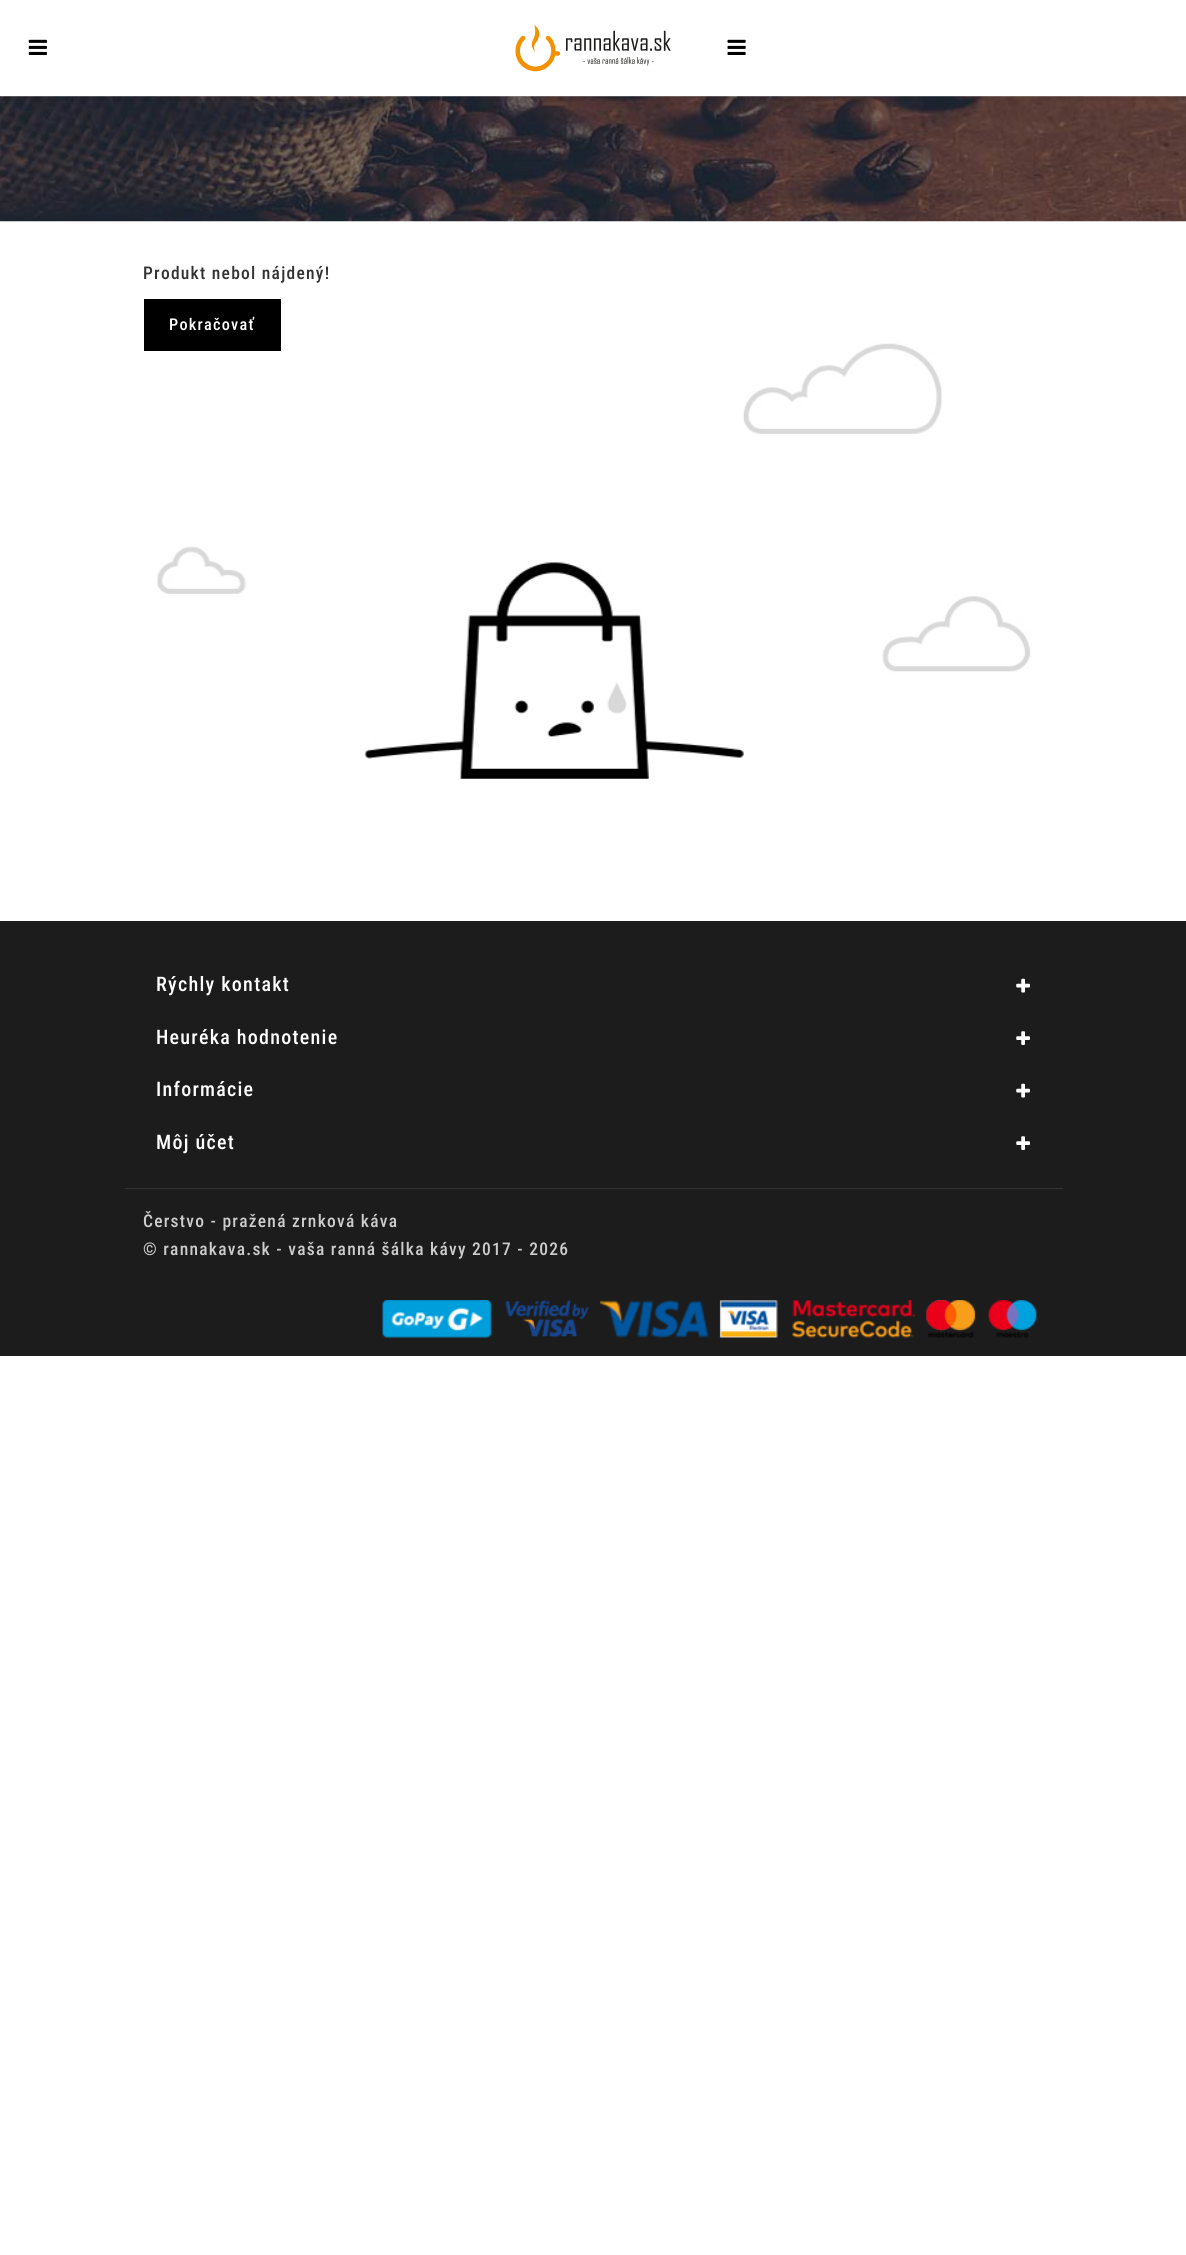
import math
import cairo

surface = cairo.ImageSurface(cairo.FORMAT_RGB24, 1186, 2255)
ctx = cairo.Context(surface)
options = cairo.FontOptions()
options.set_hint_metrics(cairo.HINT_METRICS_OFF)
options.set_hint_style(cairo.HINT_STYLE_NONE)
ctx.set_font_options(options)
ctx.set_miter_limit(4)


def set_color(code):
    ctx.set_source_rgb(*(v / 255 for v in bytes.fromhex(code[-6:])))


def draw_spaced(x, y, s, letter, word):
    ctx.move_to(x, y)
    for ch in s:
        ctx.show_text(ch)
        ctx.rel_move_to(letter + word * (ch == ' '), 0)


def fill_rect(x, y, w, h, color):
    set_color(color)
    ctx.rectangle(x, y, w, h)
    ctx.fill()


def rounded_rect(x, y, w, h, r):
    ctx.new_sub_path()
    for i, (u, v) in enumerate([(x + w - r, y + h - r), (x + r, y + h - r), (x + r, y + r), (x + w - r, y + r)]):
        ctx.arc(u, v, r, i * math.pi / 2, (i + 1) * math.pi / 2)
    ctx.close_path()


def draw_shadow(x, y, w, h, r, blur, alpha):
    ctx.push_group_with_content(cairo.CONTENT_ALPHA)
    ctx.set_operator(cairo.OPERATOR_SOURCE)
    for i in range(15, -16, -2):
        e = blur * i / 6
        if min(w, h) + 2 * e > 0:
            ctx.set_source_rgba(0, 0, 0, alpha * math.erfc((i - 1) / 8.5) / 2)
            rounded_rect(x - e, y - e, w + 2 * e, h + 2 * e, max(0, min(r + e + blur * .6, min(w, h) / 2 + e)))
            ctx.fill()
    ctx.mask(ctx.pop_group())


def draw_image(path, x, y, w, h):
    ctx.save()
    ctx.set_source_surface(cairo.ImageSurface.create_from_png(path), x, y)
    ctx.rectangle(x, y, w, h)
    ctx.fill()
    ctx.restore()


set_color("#ffffff")
ctx.paint()
draw_image("assets/img4.png", 0, 96, 1186, 126)
set_color("#000000")
draw_shadow(0, 3, 1186, 96, 0, 3, 0.1)
fill_rect(0, 0, 1186, 96, "#ffffff")
draw_image("assets/img1.png", 28, 39, 19, 16)
draw_image("assets/img2.png", 515, 25, 156, 47)
draw_image("assets/img3.png", 727, 39, 19, 16)
draw_image("assets/img5.png", 157, 343, 874, 436)
ctx.select_font_face("Roboto Condensed Medium")
ctx.set_font_size(17.5)
set_color("#333333")
draw_spaced(143, 279, "Produkt nebol nájdený!", 1.25, 0)
fill_rect(144, 299, 137, 52, "#000000")
ctx.set_font_size(16.25)
set_color("#ffffff")
draw_spaced(169, 330, "Pokračovať", 1.25, 0)
fill_rect(0, 921, 1186, 435, "#1c1c1c")
ctx.set_font_size(20)
set_color("#ffffff")
draw_spaced(156, 991, "Rýchly kontakt", 1.25, 0)
draw_image("assets/img6.png", 1016, 978, 14, 15)
draw_spaced(156, 1044, "Heuréka hodnotenie", 1.25, 0)
draw_image("assets/img7.png", 1016, 1031, 14, 14)
draw_spaced(156, 1096, "Informácie", 1.25, 0)
draw_image("assets/img6.png", 1016, 1083, 14, 15)
draw_spaced(156, 1149, "Môj účet", 1.25, 0)
draw_image("assets/img7.png", 1016, 1136, 14, 14)
fill_rect(125, 1188, 938, 1, "#333333")
ctx.set_font_size(17.5)
set_color("#cccccc")
draw_spaced(143, 1227, "Čerstvo - pražená zrnková káva", 1.25, 0)
draw_spaced(143, 1255, "© rannakava.sk - vaša ranná šálka kávy 2017 - 2026", 1.25, 0)
draw_image("assets/img8.png", 382, 1300, 655, 38)
surface.write_to_png("output.png")
